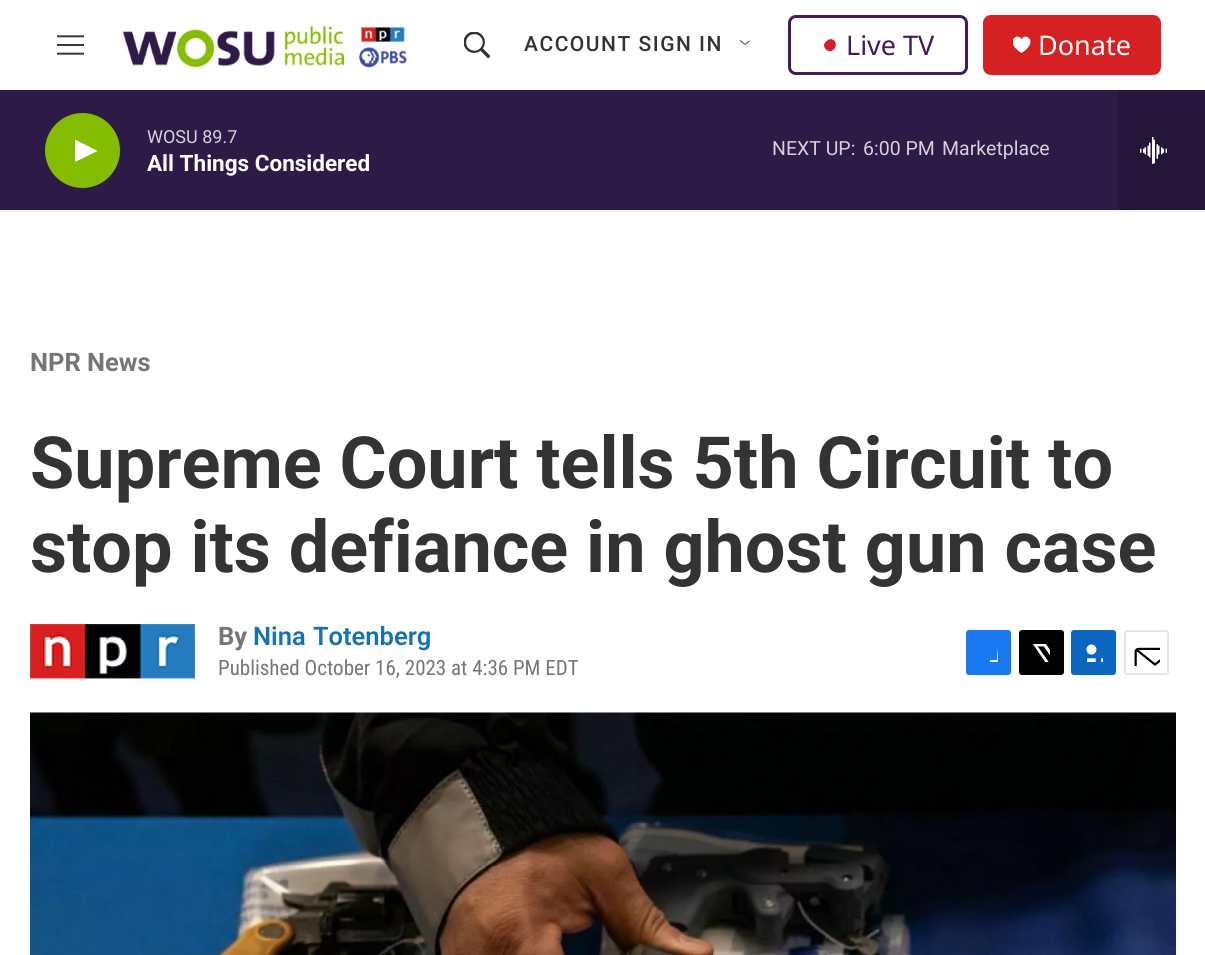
import math
import cairo

surface = cairo.ImageSurface(cairo.FORMAT_RGB24, 1205, 955)
ctx = cairo.Context(surface)
options = cairo.FontOptions()
options.set_hint_metrics(cairo.HINT_METRICS_OFF)
options.set_hint_style(cairo.HINT_STYLE_NONE)
ctx.set_font_options(options)
ctx.set_miter_limit(4)


def set_color(code):
    ctx.set_source_rgb(*(v / 255 for v in bytes.fromhex(code[-6:])))


def draw_text(x, y, s, family, size, color, bold=False, italic=False):
    ctx.select_font_face(family, cairo.FONT_SLANT_ITALIC if italic else cairo.FONT_SLANT_NORMAL, cairo.FONT_WEIGHT_BOLD if bold else cairo.FONT_WEIGHT_NORMAL)
    ctx.set_font_size(size)
    set_color(color)
    ctx.move_to(x, y)
    ctx.show_text(s)


def draw_spaced(x, y, s, letter, word):
    ctx.move_to(x, y)
    for ch in s:
        ctx.show_text(ch)
        ctx.rel_move_to(letter + word * (ch == ' '), 0)


def fill_rect(x, y, w, h, color):
    set_color(color)
    ctx.rectangle(x, y, w, h)
    ctx.fill()


def rounded_rect(x, y, w, h, r):
    ctx.new_sub_path()
    for i, (u, v) in enumerate([(x + w - r, y + h - r), (x + r, y + h - r), (x + r, y + r), (x + w - r, y + r)]):
        ctx.arc(u, v, r, i * math.pi / 2, (i + 1) * math.pi / 2)
    ctx.close_path()


def draw_image(path, x, y, w, h):
    ctx.save()
    ctx.set_source_surface(cairo.ImageSurface.create_from_png(path), x, y)
    ctx.rectangle(x, y, w, h)
    ctx.fill()
    ctx.restore()


set_color("#ffffff")
ctx.paint()
fill_rect(0, 210, 1205, 2, "#f5f5f5")
draw_image("assets/img1.png", 57, 35, 27, 20)
draw_image("assets/img2.png", 122, 26, 285, 42)
draw_image("assets/img3.png", 464, 32, 27, 27)
ctx.select_font_face("Roboto Medium")
ctx.set_font_size(21)
set_color("#333333")
draw_spaced(524, 51, "ACCOUNT SIGN IN", 1.5, 0)
draw_image("assets/img4.png", 740, 40, 10, 5)
rounded_rect(789.5, 16.5, 177, 57, 6.5)
set_color("#411c58")
ctx.set_line_width(3)
ctx.stroke()
set_color("#d62021")
ctx.new_path()
ctx.move_to(831, 39)
ctx.curve_to(839.5, 40.5, 835.5, 54, 827.5, 50.5)
ctx.curve_to(826, 50, 824.5, 48, 824, 46)
ctx.curve_to(823.5, 42.5, 828, 39.5, 831, 39)
ctx.close_path()
ctx.fill()
draw_text(846, 55, "Live TV", "Noto Sans", 27, "#411c58")
set_color("#d52122")
rounded_rect(983, 15, 178, 60, 8)
ctx.fill()
ctx.save()
ctx.rectangle(1013, 36, 18, 18)
ctx.clip()
set_color("#ffffff")
ctx.new_path()
ctx.move_to(1021.5, 39.5)
ctx.curve_to(1018.5, 31.5, 1003, 41.5, 1021.5, 53)
ctx.curve_to(1040, 41.5, 1024.5, 31.5, 1021.5, 39.5)
ctx.close_path()
ctx.fill()
ctx.restore()
draw_text(1038, 55, "Donate", "Noto Sans", 27, "#ffffff")
fill_rect(0, 90, 1118, 120, "#2e1a47")
set_color("#84bd00")
ctx.new_path()
ctx.arc(82.5, 150.5, 37.5, 0, 2 * math.pi)
ctx.fill()
set_color("#ffffff")
ctx.new_path()
ctx.move_to(75, 139.5)
ctx.line_to(97.5, 151)
ctx.line_to(75, 162)
ctx.close_path()
ctx.fill()
draw_text(147, 143, "WOSU 89.7", "Roboto", 18, "#d5d1da")
draw_text(147, 171, "All Things Considered", "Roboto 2", 22.5, "#ffffff", bold=True)
draw_text(772, 155, "NEXT UP:", "Roboto", 19.5, "#d5d1da")
draw_text(863, 155, "6:00 PM", "Roboto", 19.5, "#d5d1da")
draw_text(942, 155, "Marketplace", "Roboto", 19.5, "#d5d1da")
fill_rect(1118, 90, 87, 120, "#251539")
draw_image("assets/img5.png", 1140, 137, 27, 27)
draw_text(30, 371, "NPR News", "Roboto", 25.5, "#767676", bold=True)
draw_text(30, 488, "Supreme Court tells 5th Circuit to", "Roboto", 72, "#333333", bold=True)
draw_text(30, 572, "stop its defiance in ghost gun case", "Roboto", 72, "#333333", bold=True)
draw_image("assets/img6.png", 30, 624, 165, 56)
draw_text(218, 645, "By", "Roboto", 25.5, "#767676", bold=True)
ctx.select_font_face("Roboto SemiBold")
set_color("#1772b0")
draw_spaced(253, 645, "Nina Totenberg", 0, 1)
draw_text(218, 675, "Published October 16, 2023 at 4:36 PM EDT", "Roboto Condensed", 21, "#767676")
set_color("#1778f2")
rounded_rect(966, 630, 45, 45, 3)
ctx.fill()
ctx.save()
ctx.rectangle(980, 644, 18, 18)
ctx.clip()
set_color("#ffffff")
ctx.new_path()
ctx.move_to(1004, 675)
ctx.line_to(997, 675)
ctx.line_to(997, 668)
ctx.line_to(990, 668)
ctx.line_to(990, 660)
ctx.line_to(997, 660)
ctx.curve_to(997, 648.5, 998, 642.5, 1011, 644)
ctx.line_to(1011, 651)
ctx.curve_to(1003, 651, 1004, 653.5, 1004, 660)
ctx.line_to(1011, 660)
ctx.line_to(1010, 668)
ctx.line_to(1004, 668)
ctx.close_path()
ctx.fill()
ctx.restore()
set_color("#000000")
rounded_rect(1019, 630, 45, 45, 3)
ctx.fill()
draw_image("assets/img7.png", 1033, 644, 17, 18)
set_color("#0a66c1")
rounded_rect(1071, 630, 45, 45, 3)
ctx.fill()
draw_image("assets/img8.png", 1086, 644, 17, 18)
rounded_rect(1125, 631, 43, 43, 2)
set_color("#e6e6e6")
ctx.set_line_width(2)
ctx.stroke()
draw_image("assets/img9.png", 1134, 647, 26, 19)
draw_image("assets/img10.png", 30, 712, 1146, 243)
surface.write_to_png("output.png")
